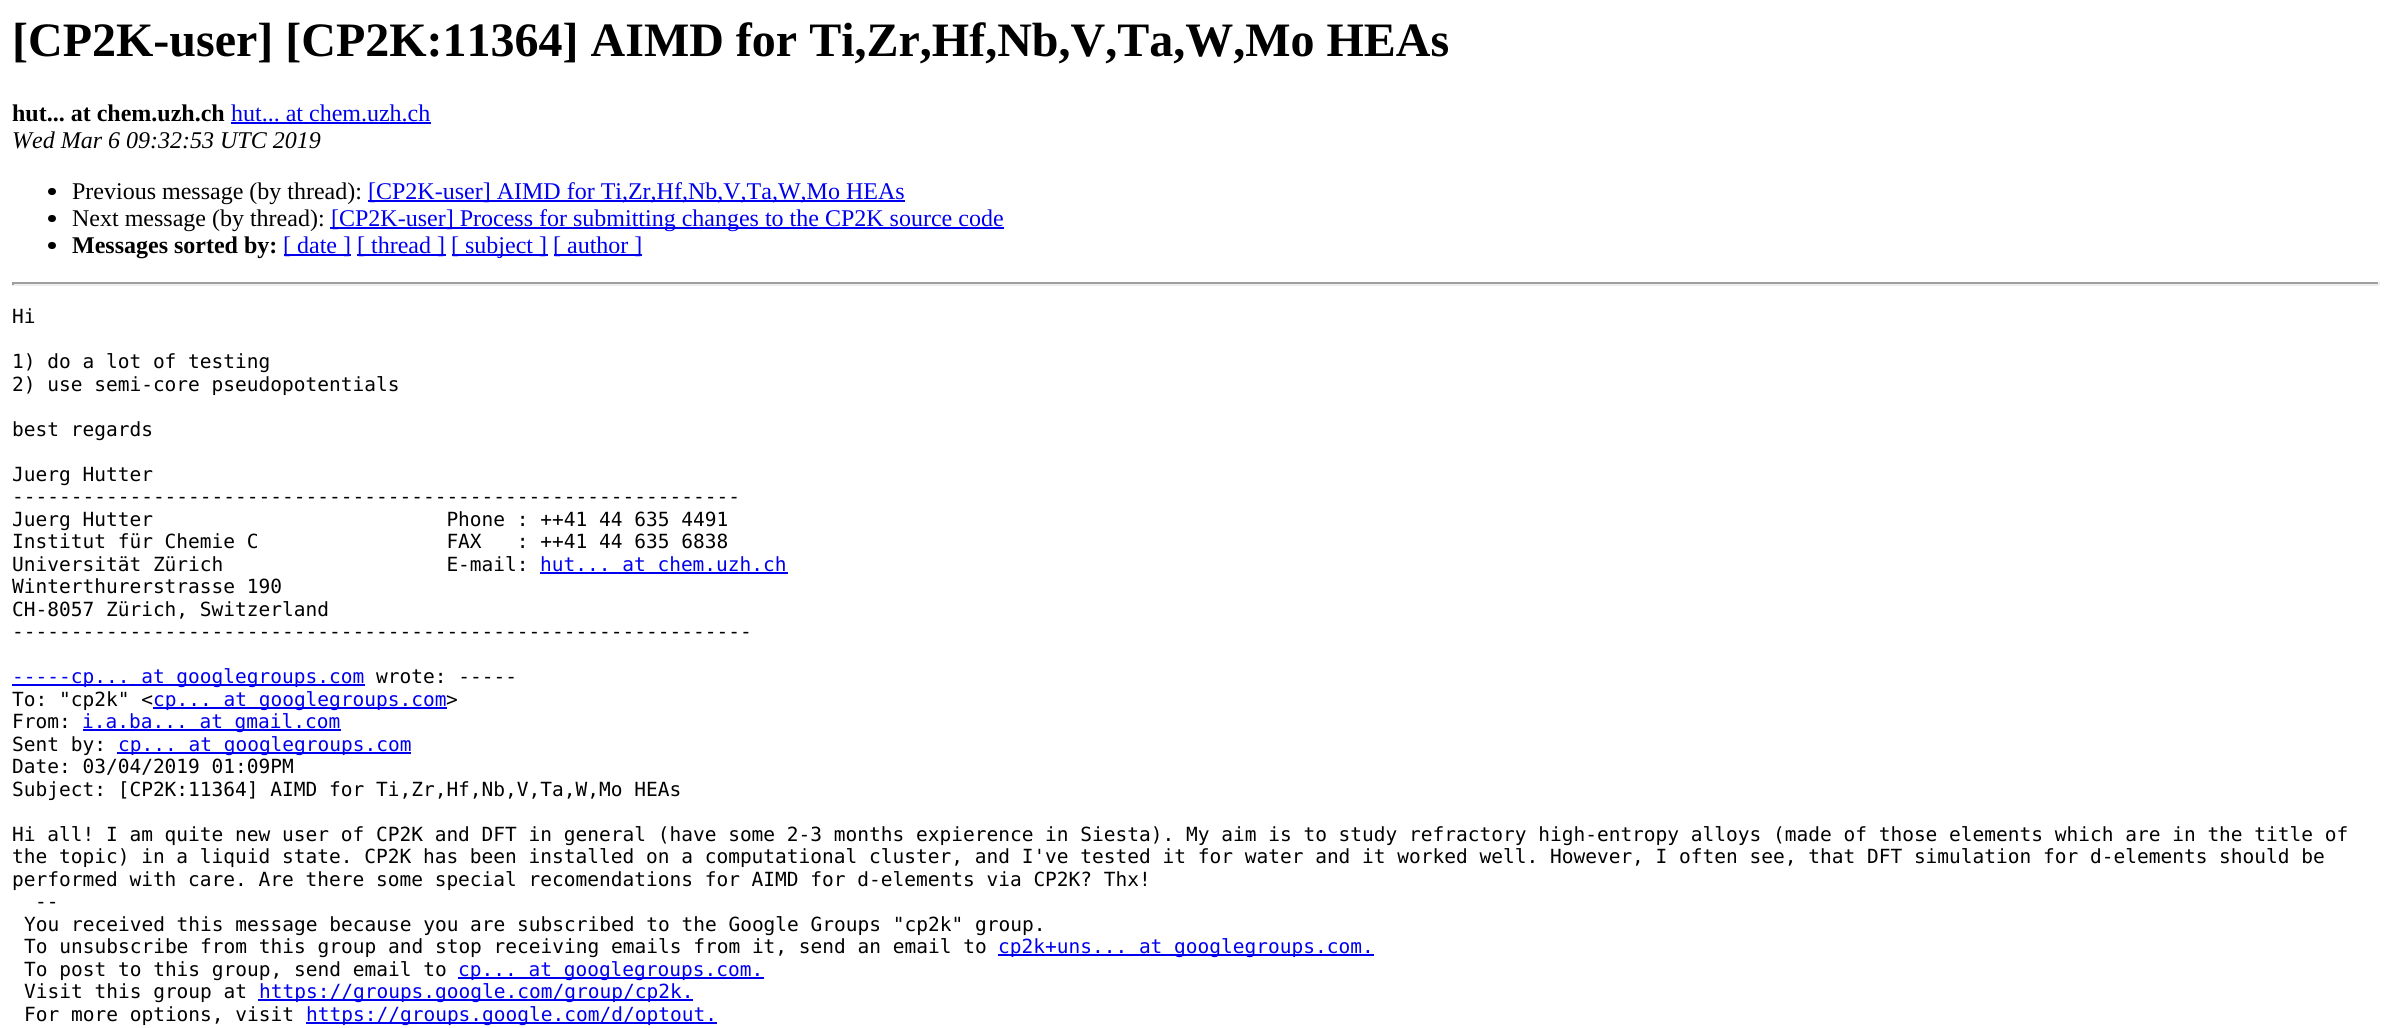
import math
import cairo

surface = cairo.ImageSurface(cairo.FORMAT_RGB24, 2391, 1028)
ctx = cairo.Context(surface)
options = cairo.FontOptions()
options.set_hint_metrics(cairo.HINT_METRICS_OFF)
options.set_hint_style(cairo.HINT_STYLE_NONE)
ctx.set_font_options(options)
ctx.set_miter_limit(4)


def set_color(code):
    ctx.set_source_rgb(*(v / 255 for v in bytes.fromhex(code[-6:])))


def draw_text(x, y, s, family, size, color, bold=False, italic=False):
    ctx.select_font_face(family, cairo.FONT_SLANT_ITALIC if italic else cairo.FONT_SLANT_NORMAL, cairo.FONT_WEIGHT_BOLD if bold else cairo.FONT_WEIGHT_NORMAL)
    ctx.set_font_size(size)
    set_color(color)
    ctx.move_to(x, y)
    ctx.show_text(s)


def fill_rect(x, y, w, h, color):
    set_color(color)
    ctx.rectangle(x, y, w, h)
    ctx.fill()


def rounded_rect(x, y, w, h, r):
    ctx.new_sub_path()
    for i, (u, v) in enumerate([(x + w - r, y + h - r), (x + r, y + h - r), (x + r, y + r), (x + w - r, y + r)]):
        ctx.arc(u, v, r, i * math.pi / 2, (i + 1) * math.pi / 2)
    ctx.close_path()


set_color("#ffffff")
ctx.paint()
draw_text(12, 56, "[CP2K-user] [CP2K:11364] AIMD for Ti,Zr,Hf,Nb,V,Ta,W,Mo HEAs", "Liberation Serif", 48, "#000000", bold=True)
draw_text(12, 121, "hut... at chem.uzh.ch", "Liberation Serif", 24, "#000000", bold=True)
draw_text(231, 121, "hut... at chem.uzh.ch", "Liberation Serif", 24, "#0000ee")
fill_rect(231, 122, 200, 2, "#0000ee")
draw_text(12, 148, "Wed Mar 6 09:32:53 UTC 2019", "Liberation Serif", 24, "#000000", italic=True)
rounded_rect(48, 188, 8, 7, 3.5)
ctx.fill()
draw_text(72, 199, "Previous message (by thread):", "Liberation Serif", 24, "#000000")
fill_rect(368, 200, 537, 2, "#0000ee")
draw_text(368, 199, "[CP2K-user] AIMD for Ti,Zr,Hf,Nb,V,Ta,W,Mo HEAs", "Liberation Serif", 24, "#0000ee")
set_color("#000000")
rounded_rect(48, 215, 8, 7, 3.5)
ctx.fill()
draw_text(72, 226, "Next message (by thread):", "Liberation Serif", 24, "#000000")
fill_rect(330, 227, 674, 2, "#0000ee")
draw_text(331, 226, "[CP2K-user] Process for submitting changes to the CP2K source code", "Liberation Serif", 24, "#0000ee")
set_color("#000000")
rounded_rect(48, 242, 8, 7, 3.5)
ctx.fill()
draw_text(72, 253, "Messages sorted by:", "Liberation Serif", 24, "#000000", bold=True)
fill_rect(284, 254, 67, 2, "#0000ee")
draw_text(283, 253, "[ date ]", "Liberation Serif", 24, "#0000ee")
fill_rect(357, 254, 89, 2, "#0000ee")
draw_text(357, 253, "[ thread ]", "Liberation Serif", 24, "#0000ee")
fill_rect(452, 254, 96, 2, "#0000ee")
draw_text(451, 253, "[ subject ]", "Liberation Serif", 24, "#0000ee")
fill_rect(554, 254, 88, 2, "#0000ee")
draw_text(553, 253, "[ author ]", "Liberation Serif", 24, "#0000ee")
fill_rect(12, 282, 2367, 2, "#9f9f9f")
fill_rect(2378, 282, 2, 3, "#eeeeee")
fill_rect(12, 284, 2367, 2, "#eeeeee")
fill_rect(12, 282, 2, 3, "#9f9f9f")
draw_text(12, 323, "Hi", "DejaVu Sans Mono", 19.5, "#000000")
draw_text(12, 368, "1) do a lot of testing", "DejaVu Sans Mono", 19.5, "#000000")
draw_text(12, 391, "2) use semi-core pseudopotentials", "DejaVu Sans Mono", 19.5, "#000000")
draw_text(12, 436, "best regards", "DejaVu Sans Mono", 19.5, "#000000")
draw_text(12, 481, "Juerg Hutter", "DejaVu Sans Mono", 19.5, "#000000")
draw_text(12, 503, "--------------------------------------------------------------", "DejaVu Sans Mono", 19.5, "#000000")
draw_text(12, 526, "Juerg Hutter                         Phone : ++41 44 635 4491", "DejaVu Sans Mono", 19.5, "#000000")
draw_text(12, 548, "Institut für Chemie C                FAX   : ++41 44 635 6838", "DejaVu Sans Mono", 19.5, "#000000")
draw_text(12, 571, "Universität Zürich                   E-mail:", "DejaVu Sans Mono", 19.5, "#000000")
draw_text(540, 571, "hut... at chem.uzh.ch", "DejaVu Sans Mono", 19.5, "#0000ee")
fill_rect(540, 572, 248, 2, "#0000ee")
draw_text(12, 593, "Winterthurerstrasse 190", "DejaVu Sans Mono", 19.5, "#000000")
draw_text(12, 616, "CH-8057 Zürich, Switzerland", "DejaVu Sans Mono", 19.5, "#000000")
draw_text(12, 638, "---------------------------------------------------------------", "DejaVu Sans Mono", 19.5, "#000000")
fill_rect(12, 684, 353, 2, "#0000ee")
draw_text(12, 683, "-----cp... at googlegroups.com", "DejaVu Sans Mono", 19.5, "#0000ee")
draw_text(376, 683, "wrote: -----", "DejaVu Sans Mono", 19.5, "#000000")
draw_text(12, 706, "To: \"cp2k\" <", "DejaVu Sans Mono", 19.5, "#000000")
fill_rect(153, 707, 294, 2, "#0000ee")
draw_text(153, 706, "cp... at googlegroups.com", "DejaVu Sans Mono", 19.5, "#0000ee")
draw_text(446, 706, ">", "DejaVu Sans Mono", 19.5, "#000000")
draw_text(12, 728, "From:", "DejaVu Sans Mono", 19.5, "#000000")
fill_rect(83, 729, 258, 2, "#0000ee")
draw_text(82, 728, "i.a.ba... at gmail.com", "DejaVu Sans Mono", 19.5, "#0000ee")
draw_text(12, 751, "Sent by:", "DejaVu Sans Mono", 19.5, "#000000")
fill_rect(117, 752, 294, 2, "#0000ee")
draw_text(118, 751, "cp... at googlegroups.com", "DejaVu Sans Mono", 19.5, "#0000ee")
draw_text(12, 773, "Date: 03/04/2019 01:09PM", "DejaVu Sans Mono", 19.5, "#000000")
draw_text(12, 796, "Subject: [CP2K:11364] AIMD for Ti,Zr,Hf,Nb,V,Ta,W,Mo HEAs", "DejaVu Sans Mono", 19.5, "#000000")
draw_text(12, 841, "Hi all! I am quite new user of CP2K and DFT in general (have some 2-3 months expierence in Siesta). My aim is to study refractory high-entropy alloys (made of those elements which are in the title of", "DejaVu Sans Mono", 19.5, "#000000")
draw_text(12, 863, "the topic) in a liquid state. CP2K has been installed on a computational cluster, and I've tested it for water and it worked well. However, I often see, that DFT simulation for d-elements should be", "DejaVu Sans Mono", 19.5, "#000000")
draw_text(12, 886, "performed with care. Are there some special recomendations for AIMD for d-elements via CP2K? Thx!", "DejaVu Sans Mono", 19.5, "#000000")
draw_text(35, 908, "--", "DejaVu Sans Mono", 19.5, "#000000")
draw_text(24, 931, "You received this message because you are subscribed to the Google Groups \"cp2k\" group.", "DejaVu Sans Mono", 19.5, "#000000")
draw_text(24, 953, "To unsubscribe from this group and stop receiving emails from it, send an email to", "DejaVu Sans Mono", 19.5, "#000000")
fill_rect(998, 954, 376, 2, "#0000ee")
draw_text(998, 953, "cp2k+uns... at googlegroups.com.", "DejaVu Sans Mono", 19.5, "#0000ee")
draw_text(24, 976, "To post to this group, send email to", "DejaVu Sans Mono", 19.5, "#000000")
fill_rect(458, 977, 306, 2, "#0000ee")
draw_text(458, 976, "cp... at googlegroups.com.", "DejaVu Sans Mono", 19.5, "#0000ee")
draw_text(24, 998, "Visit this group at", "DejaVu Sans Mono", 19.5, "#000000")
fill_rect(258, 999, 435, 2, "#0000ee")
draw_text(259, 998, "https://groups.google.com/group/cp2k.", "DejaVu Sans Mono", 19.5, "#0000ee")
draw_text(24, 1021, "For more options, visit", "DejaVu Sans Mono", 19.5, "#000000")
fill_rect(306, 1022, 411, 2, "#0000ee")
draw_text(306, 1021, "https://groups.google.com/d/optout.", "DejaVu Sans Mono", 19.5, "#0000ee")
surface.write_to_png("output.png")
